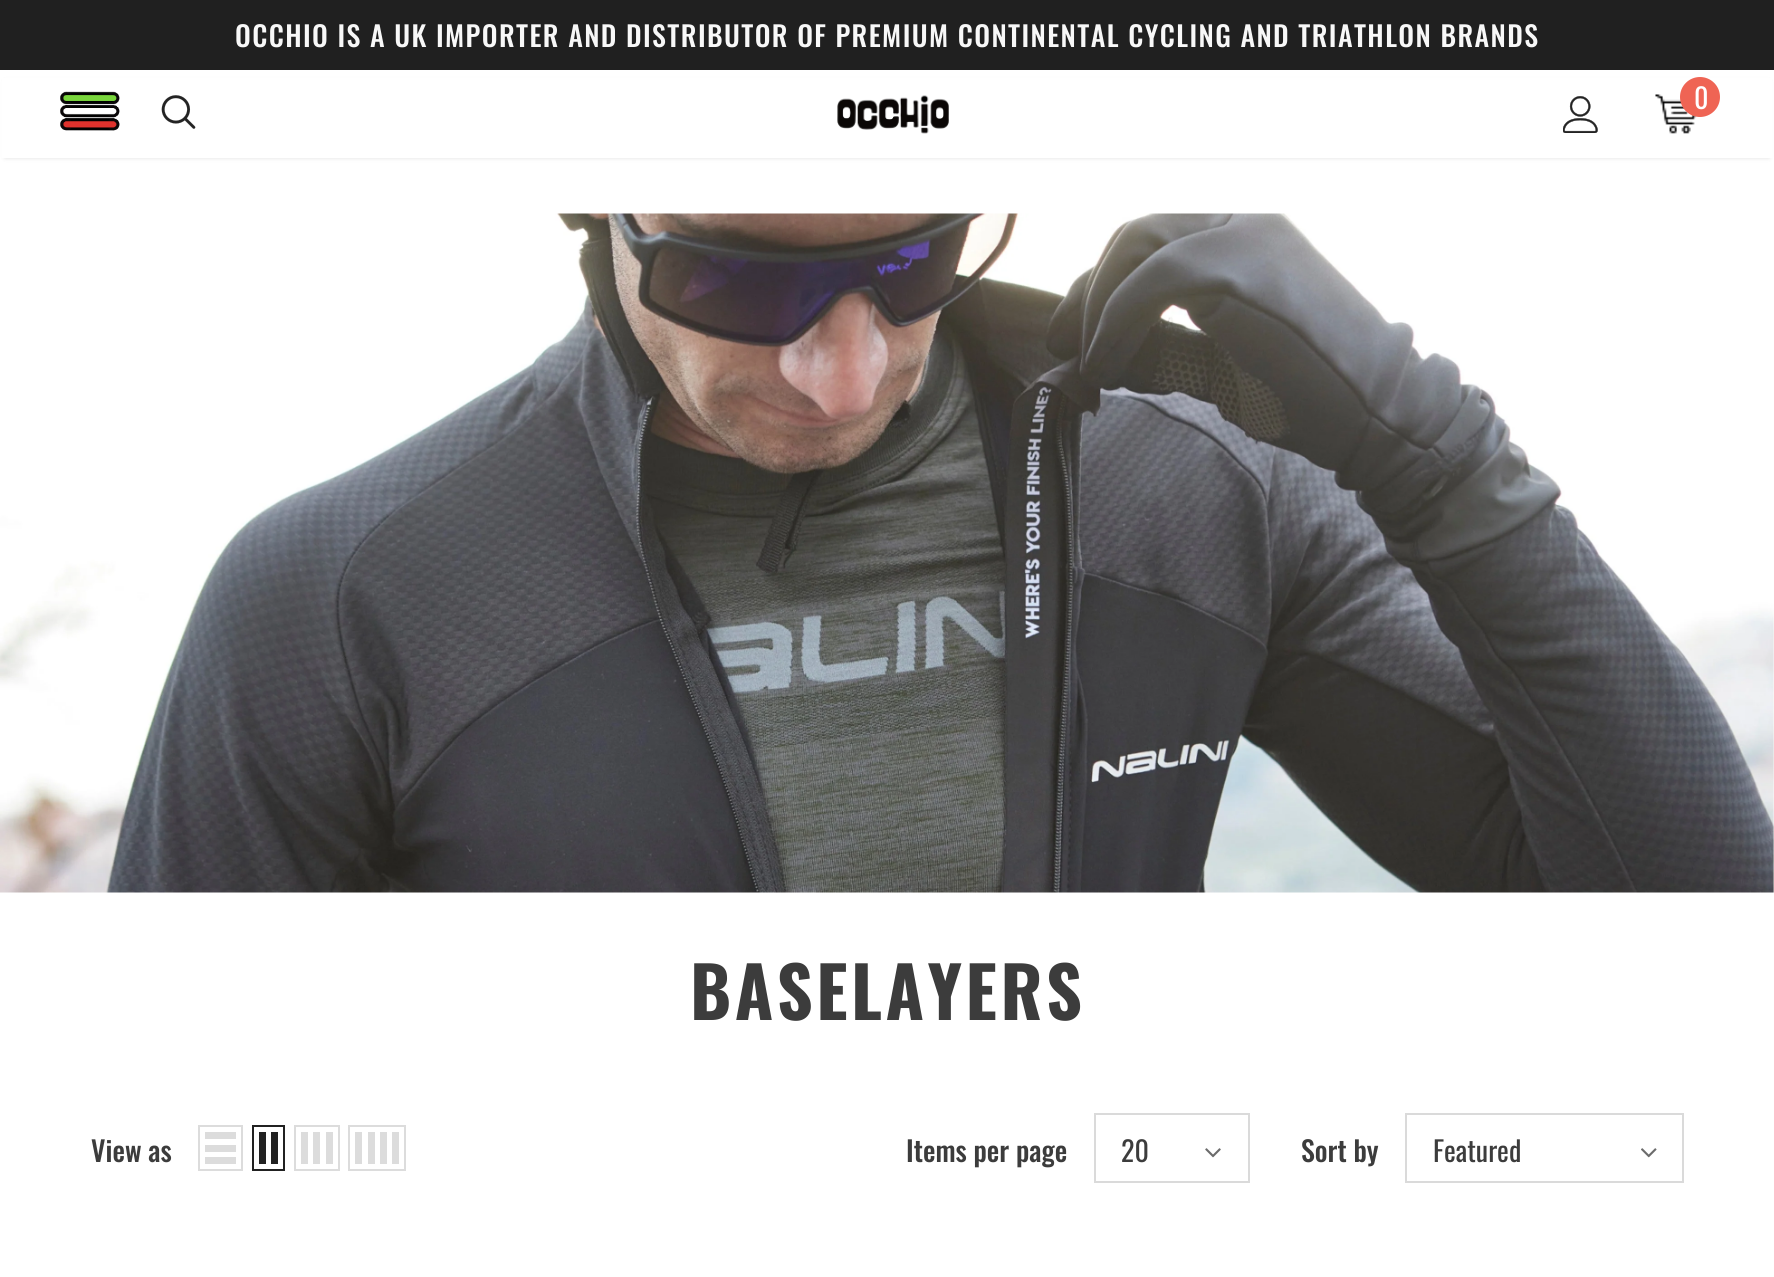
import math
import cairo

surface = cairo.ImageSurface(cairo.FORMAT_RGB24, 1774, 1277)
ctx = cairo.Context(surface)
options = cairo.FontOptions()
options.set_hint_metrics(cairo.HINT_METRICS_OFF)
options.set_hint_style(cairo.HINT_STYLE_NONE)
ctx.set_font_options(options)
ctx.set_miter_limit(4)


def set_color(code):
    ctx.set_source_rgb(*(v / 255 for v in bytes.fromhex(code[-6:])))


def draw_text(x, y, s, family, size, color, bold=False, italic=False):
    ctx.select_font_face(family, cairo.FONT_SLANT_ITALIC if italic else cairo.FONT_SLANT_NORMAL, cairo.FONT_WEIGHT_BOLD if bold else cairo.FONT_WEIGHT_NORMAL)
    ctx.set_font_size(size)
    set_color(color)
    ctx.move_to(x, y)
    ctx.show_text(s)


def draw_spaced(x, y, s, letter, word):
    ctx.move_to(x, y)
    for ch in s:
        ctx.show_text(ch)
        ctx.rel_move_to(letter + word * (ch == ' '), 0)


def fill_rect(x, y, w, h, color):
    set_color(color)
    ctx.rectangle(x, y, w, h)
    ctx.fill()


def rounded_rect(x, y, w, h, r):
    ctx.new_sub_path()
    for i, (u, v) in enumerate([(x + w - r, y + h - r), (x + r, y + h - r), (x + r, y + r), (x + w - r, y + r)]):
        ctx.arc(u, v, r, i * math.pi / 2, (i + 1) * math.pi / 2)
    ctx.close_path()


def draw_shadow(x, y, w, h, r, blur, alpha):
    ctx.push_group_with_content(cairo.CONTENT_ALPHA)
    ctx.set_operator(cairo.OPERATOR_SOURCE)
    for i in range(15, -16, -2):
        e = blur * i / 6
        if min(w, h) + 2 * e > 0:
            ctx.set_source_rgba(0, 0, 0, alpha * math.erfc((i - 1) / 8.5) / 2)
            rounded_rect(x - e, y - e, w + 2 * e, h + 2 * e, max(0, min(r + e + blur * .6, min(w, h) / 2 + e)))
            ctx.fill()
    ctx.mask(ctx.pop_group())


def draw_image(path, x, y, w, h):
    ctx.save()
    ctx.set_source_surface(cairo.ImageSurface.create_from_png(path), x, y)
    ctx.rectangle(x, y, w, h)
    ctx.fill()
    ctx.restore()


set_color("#ffffff")
ctx.paint()
fill_rect(0, 0, 1774, 70, "#202020")
ctx.select_font_face("Oswald Medium")
ctx.set_font_size(28)
set_color("#f8f8f8")
draw_spaced(235, 47, "OCCHIO IS A UK IMPORTER AND DISTRIBUTOR OF PREMIUM CONTINENTAL CYCLING AND TRIATHLON BRANDS", 1.4, 0)
set_color("#000000")
draw_shadow(5, 81, 1764, 77, 0, 2.5, 0.12)
fill_rect(2, 78, 1770, 80, "#ffffff")
draw_image("assets/img1.png", 60, 91, 60, 40)
draw_image("assets/img2.png", 161, 95, 35, 34)
draw_image("assets/img3.png", 837, 95, 112, 39)
draw_image("assets/img4.png", 1563, 96, 35, 37)
draw_image("assets/img5.png", 1655, 94, 42, 40)
set_color("#ef6454")
ctx.arc(1700, 97, 20, 0, 2 * math.pi)
ctx.fill()
draw_text(1694, 109, "0", "Oswald", 28, "#ffffff")
draw_image("assets/img6.png", 0, 213, 1774, 680)
ctx.select_font_face("Oswald", cairo.FONT_SLANT_NORMAL, cairo.FONT_WEIGHT_BOLD)
ctx.set_font_size(70)
set_color("#3c3c3c")
draw_spaced(690, 1020, "BASELAYERS", 3.5, 0)
draw_text(91, 1162, "View as", "Oswald Medium", 28, "#3c3c3c")
ctx.rectangle(199, 1126, 43, 44)
set_color("#dcdcdc")
ctx.stroke()
fill_rect(205, 1157, 31, 7, "#dcdcdc")
fill_rect(205, 1145, 31, 7, "#dcdcdc")
fill_rect(205, 1132, 31, 7, "#dcdcdc")
ctx.rectangle(253, 1126, 31, 44)
set_color("#212121")
ctx.stroke()
fill_rect(271, 1132, 7, 32, "#212121")
fill_rect(259, 1132, 7, 32, "#212121")
ctx.rectangle(295, 1126, 44, 44)
set_color("#dcdcdc")
ctx.stroke()
fill_rect(326, 1132, 7, 32, "#dcdcdc")
fill_rect(313, 1132, 7, 32, "#dcdcdc")
fill_rect(301, 1132, 7, 32, "#dcdcdc")
ctx.rectangle(349, 1126, 56, 44)
ctx.stroke()
fill_rect(392, 1132, 7, 32, "#dcdcdc")
fill_rect(380, 1132, 7, 32, "#dcdcdc")
fill_rect(368, 1132, 7, 32, "#dcdcdc")
fill_rect(355, 1132, 7, 32, "#dcdcdc")
draw_text(906, 1162, "Items per page", "Oswald Medium", 28, "#3c3c3c")
ctx.rectangle(1095, 1114, 154, 68)
set_color("#dadada")
ctx.stroke()
draw_text(1121, 1162, "20", "Oswald", 28, "#3c3c3c")
draw_image("assets/img7.png", 1205, 1148, 16, 10)
draw_text(1301, 1162, "Sort by", "Oswald Medium", 28, "#3c3c3c")
ctx.rectangle(1406, 1114, 277, 68)
set_color("#dadada")
ctx.stroke()
draw_text(1433, 1162, "Featured", "Oswald", 28, "#3c3c3c")
draw_image("assets/img8.png", 1641, 1148, 16, 10)
surface.write_to_png("output.png")
